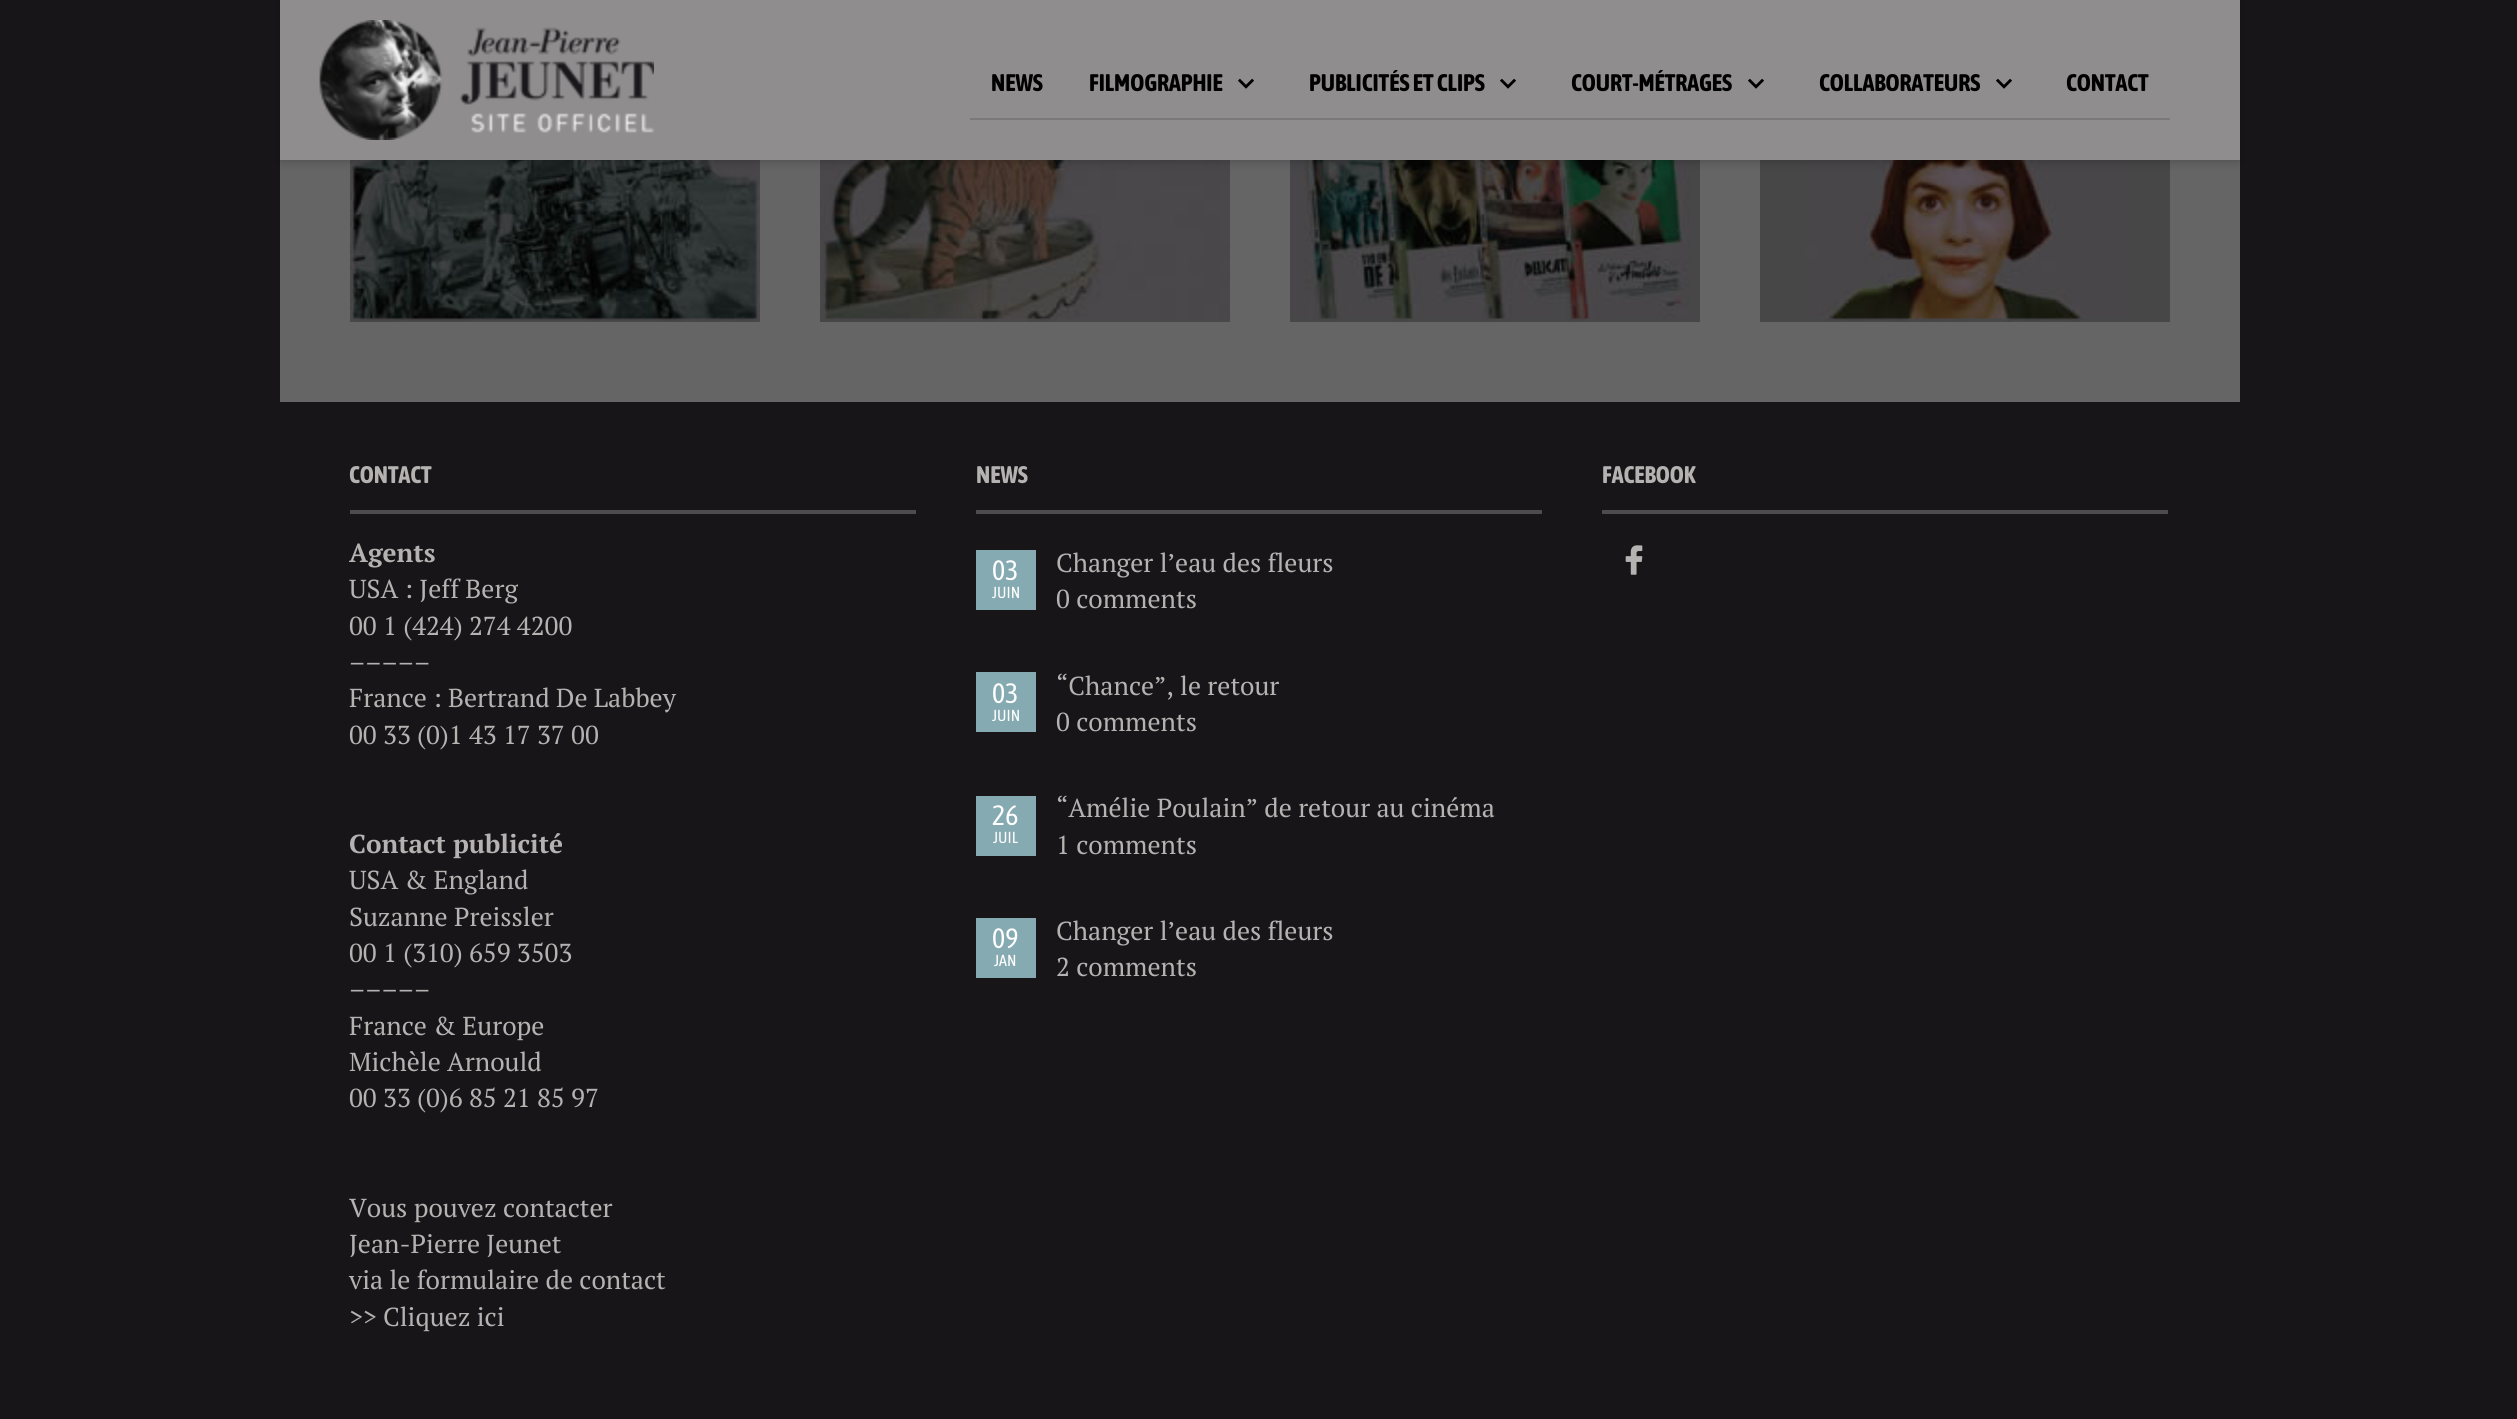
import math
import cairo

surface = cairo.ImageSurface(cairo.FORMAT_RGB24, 2517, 1419)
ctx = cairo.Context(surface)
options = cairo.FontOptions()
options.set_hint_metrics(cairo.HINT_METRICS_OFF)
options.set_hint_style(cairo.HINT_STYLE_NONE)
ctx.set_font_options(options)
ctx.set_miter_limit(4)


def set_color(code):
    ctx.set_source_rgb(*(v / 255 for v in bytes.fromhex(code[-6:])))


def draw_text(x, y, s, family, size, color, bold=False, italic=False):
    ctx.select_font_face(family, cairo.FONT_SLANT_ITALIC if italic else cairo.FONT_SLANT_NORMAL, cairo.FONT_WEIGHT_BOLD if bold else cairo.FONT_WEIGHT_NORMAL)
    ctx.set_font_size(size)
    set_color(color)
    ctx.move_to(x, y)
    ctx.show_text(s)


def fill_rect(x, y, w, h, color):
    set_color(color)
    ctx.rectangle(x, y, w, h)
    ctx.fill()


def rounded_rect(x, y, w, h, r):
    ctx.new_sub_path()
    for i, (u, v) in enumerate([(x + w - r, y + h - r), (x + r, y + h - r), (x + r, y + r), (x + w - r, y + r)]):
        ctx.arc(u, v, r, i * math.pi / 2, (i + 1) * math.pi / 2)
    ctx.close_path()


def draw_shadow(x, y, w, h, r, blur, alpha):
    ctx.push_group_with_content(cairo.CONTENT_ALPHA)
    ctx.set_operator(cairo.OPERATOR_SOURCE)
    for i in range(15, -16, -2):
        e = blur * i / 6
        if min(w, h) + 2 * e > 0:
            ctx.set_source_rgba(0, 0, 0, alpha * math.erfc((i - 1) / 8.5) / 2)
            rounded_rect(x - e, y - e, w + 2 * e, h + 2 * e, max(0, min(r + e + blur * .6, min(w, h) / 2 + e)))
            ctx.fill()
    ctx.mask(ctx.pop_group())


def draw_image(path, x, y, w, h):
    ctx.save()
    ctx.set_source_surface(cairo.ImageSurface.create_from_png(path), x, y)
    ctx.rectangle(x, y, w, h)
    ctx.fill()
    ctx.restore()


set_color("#181518")
ctx.paint()
fill_rect(280, 160, 1960, 242, "#666566")
draw_image("assets/img3.png", 350, 160, 410, 162)
draw_image("assets/img4.png", 820, 160, 410, 162)
draw_image("assets/img5.png", 1290, 160, 410, 162)
draw_image("assets/img6.png", 1760, 160, 410, 162)
set_color("#000000")
draw_shadow(280, 2, 1960, 160, 0, 5, 0.2)
fill_rect(280, 0, 1960, 160, "#8f8d8d")
draw_image("assets/img1.png", 319, 20, 335, 120)
fill_rect(970, 118, 1200, 2, "#7a7878")
draw_text(991, 91, "NEWS", "Asap Condensed", 24, "#000000", bold=True)
draw_image("assets/img2.png", 1238, 78, 16, 11)
draw_text(1089, 91, "FILMOGRAPHIE", "Asap Condensed", 24, "#000000", bold=True)
draw_image("assets/img2.png", 1500, 78, 16, 11)
draw_text(1309, 91, "PUBLICITÉS ET CLIPS", "Asap Condensed", 24, "#000000", bold=True)
draw_image("assets/img2.png", 1748, 78, 16, 11)
draw_text(1571, 91, "COURT-MÉTRAGES", "Asap Condensed", 24, "#000000", bold=True)
draw_image("assets/img2.png", 1996, 78, 16, 11)
draw_text(1819, 91, "COLLABORATEURS", "Asap Condensed", 24, "#000000", bold=True)
draw_text(2066, 91, "CONTACT", "Asap Condensed", 24, "#000000", bold=True)
fill_rect(350, 510, 566, 4, "#4f4c4e")
draw_text(349, 483, "CONTACT", "Asap Condensed", 24, "#b5b2b1", bold=True)
draw_text(349, 562, "Agents", "PT Serif", 26, "#b5b2b1", bold=True)
draw_text(349, 598, "USA : Jeff Berg", "PT Serif", 26, "#b5b2b1")
draw_text(349, 635, "00 1 (424) 274 4200", "PT Serif", 26, "#b5b2b1")
draw_text(349, 671, "–––––", "PT Serif", 26, "#b5b2b1")
draw_text(349, 707, "France : Bertrand De Labbey", "PT Serif", 26, "#b5b2b1")
draw_text(349, 744, "00 33 (0)1 43 17 37 00", "PT Serif", 26, "#b5b2b1")
draw_text(349, 853, "Contact publicité", "PT Serif", 26, "#b5b2b1", bold=True)
draw_text(349, 889, "USA & England", "PT Serif", 26, "#b5b2b1")
draw_text(349, 926, "Suzanne Preissler", "PT Serif", 26, "#b5b2b1")
draw_text(349, 962, "00 1 (310) 659 3503", "PT Serif", 26, "#b5b2b1")
draw_text(349, 998, "–––––", "PT Serif", 26, "#b5b2b1")
draw_text(349, 1035, "France & Europe", "PT Serif", 26, "#b5b2b1")
draw_text(349, 1071, "Michèle Arnould", "PT Serif", 26, "#b5b2b1")
draw_text(349, 1107, "00 33 (0)6 85 21 85 97", "PT Serif", 26, "#b5b2b1")
draw_text(349, 1217, "Vous pouvez contacter", "PT Serif", 26, "#b5b2b1")
draw_text(349, 1253, "Jean-Pierre Jeunet", "PT Serif", 26, "#b5b2b1")
draw_text(349, 1289, "via le formulaire de contact", "PT Serif", 26, "#b5b2b1")
draw_text(349, 1326, ">> Cliquez ici", "PT Serif", 26, "#b5b2b1")
fill_rect(976, 510, 566, 4, "#4f4c4e")
draw_text(976, 483, "NEWS", "Asap Condensed", 24, "#b5b2b1", bold=True)
fill_rect(976, 550, 60, 60, "#86aab1")
draw_text(992, 580, "03", "Asap Condensed", 28, "#ffffff")
draw_text(992, 598, "JUIN", "Asap Condensed", 16, "#ffffff")
draw_text(1056, 572, "Changer l’eau des fleurs", "PT Serif", 26, "#b5b2b1")
draw_text(1056, 608, "0 comments", "PT Serif", 26, "#b5b2b1")
fill_rect(976, 672, 60, 60, "#86aab1")
draw_text(992, 703, "03", "Asap Condensed", 28, "#ffffff")
draw_text(992, 721, "JUIN", "Asap Condensed", 16, "#ffffff")
draw_text(1056, 695, "“Chance”, le retour", "PT Serif", 26, "#b5b2b1")
draw_text(1056, 731, "0 comments", "PT Serif", 26, "#b5b2b1")
fill_rect(976, 796, 60, 60, "#86aab1")
draw_text(992, 825, "26", "Asap Condensed", 28, "#ffffff")
draw_text(993, 843, "JUIL", "Asap Condensed", 16, "#ffffff")
draw_text(1056, 817, "“Amélie Poulain” de retour au cinéma", "PT Serif", 26, "#b5b2b1")
draw_text(1056, 854, "1 comments", "PT Serif", 26, "#b5b2b1")
fill_rect(976, 918, 60, 60, "#86aab1")
draw_text(992, 948, "09", "Asap Condensed", 28, "#ffffff")
draw_text(994, 966, "JAN", "Asap Condensed", 16, "#ffffff")
draw_text(1056, 940, "Changer l’eau des fleurs", "PT Serif", 26, "#b5b2b1")
draw_text(1056, 976, "2 comments", "PT Serif", 26, "#b5b2b1")
fill_rect(1602, 510, 566, 4, "#4f4c4e")
draw_text(1602, 483, "FACEBOOK", "Asap Condensed", 24, "#b5b2b1", bold=True)
draw_image("assets/img7.png", 1625, 545, 18, 30)
surface.write_to_png("output.png")
